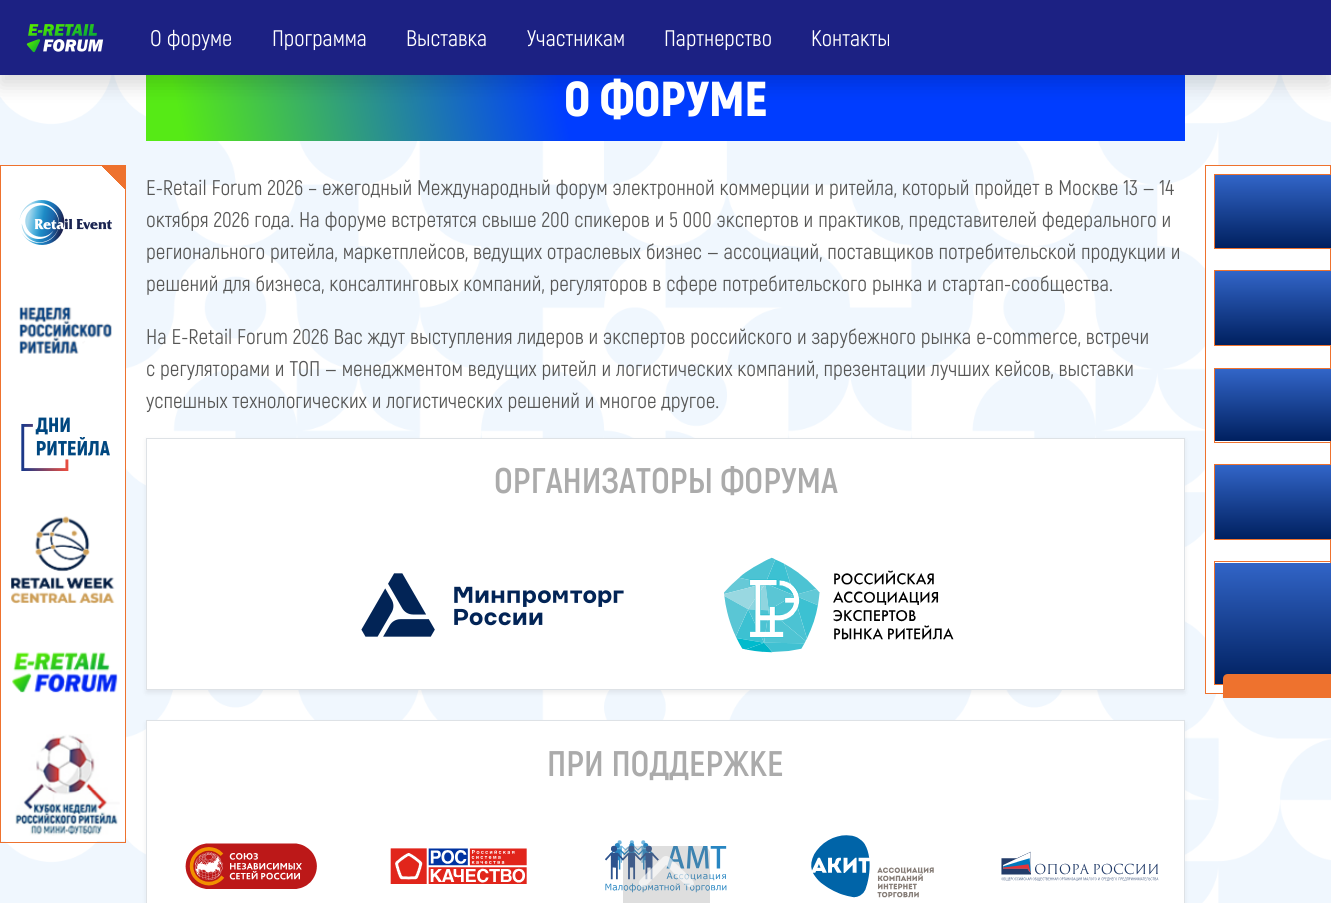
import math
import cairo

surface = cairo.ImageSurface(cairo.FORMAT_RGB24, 1331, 903)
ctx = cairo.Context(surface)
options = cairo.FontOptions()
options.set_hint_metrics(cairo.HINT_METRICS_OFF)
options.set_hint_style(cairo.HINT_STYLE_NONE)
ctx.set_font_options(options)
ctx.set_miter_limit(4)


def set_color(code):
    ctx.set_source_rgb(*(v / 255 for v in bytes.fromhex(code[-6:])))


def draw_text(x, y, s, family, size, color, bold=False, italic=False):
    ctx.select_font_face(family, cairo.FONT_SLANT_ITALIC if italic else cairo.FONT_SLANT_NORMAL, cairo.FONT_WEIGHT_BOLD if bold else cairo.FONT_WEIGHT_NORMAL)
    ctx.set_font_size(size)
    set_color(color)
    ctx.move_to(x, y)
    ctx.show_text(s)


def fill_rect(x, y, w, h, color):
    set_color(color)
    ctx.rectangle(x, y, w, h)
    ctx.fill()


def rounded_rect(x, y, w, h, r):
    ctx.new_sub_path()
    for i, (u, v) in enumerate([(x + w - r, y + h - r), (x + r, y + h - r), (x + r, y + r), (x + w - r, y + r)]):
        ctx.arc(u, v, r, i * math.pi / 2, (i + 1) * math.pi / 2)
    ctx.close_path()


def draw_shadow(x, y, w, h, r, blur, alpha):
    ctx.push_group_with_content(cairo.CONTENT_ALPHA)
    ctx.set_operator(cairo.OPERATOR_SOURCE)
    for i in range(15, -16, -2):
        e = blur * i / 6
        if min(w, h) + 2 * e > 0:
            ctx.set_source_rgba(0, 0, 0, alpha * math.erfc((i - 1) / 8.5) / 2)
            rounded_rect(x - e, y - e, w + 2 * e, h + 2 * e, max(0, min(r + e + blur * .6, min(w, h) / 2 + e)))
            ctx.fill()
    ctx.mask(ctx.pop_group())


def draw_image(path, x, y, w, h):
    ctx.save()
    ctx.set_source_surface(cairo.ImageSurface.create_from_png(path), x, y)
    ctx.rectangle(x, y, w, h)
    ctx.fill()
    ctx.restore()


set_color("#ffffff")
ctx.paint()
draw_image("assets/img1.png", 0, 75, 1331, 828)
gradient = cairo.LinearGradient(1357, -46, 159, 202)
gradient.add_color_stop_rgba(0, 0, 0.239, 1, 1)
gradient.add_color_stop_rgba(0.66, 0, 0.239, 1, 1)
gradient.add_color_stop_rgba(0.97, 0.337, 0.918, 0.086, 1)
ctx.set_source(gradient)
ctx.rectangle(146, 75, 1039, 66)
ctx.fill()
set_color("#000000")
draw_shadow(0, 10, 1331, 75, 0, 10, 0.15)
fill_rect(0, 0, 1331, 75, "#1c2183")
draw_image("assets/img2.png", 26, 24, 78, 29)
draw_text(150, 46, "О форуме", "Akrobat", 22.5, "#ffffff")
draw_text(272, 46, "Программа", "Akrobat", 22.5, "#ffffff")
draw_text(406, 46, "Выставка", "Akrobat", 22.5, "#ffffff")
draw_text(527, 46, "Участникам", "Akrobat", 22.5, "#ffffff")
draw_text(664, 46, "Партнерство", "Akrobat", 22.5, "#ffffff")
draw_text(811, 46, "Контакты", "Akrobat", 22.5, "#ffffff")
ctx.rectangle(0.5, 165.5, 125, 677)
set_color("#ee722e")
ctx.set_line_width(1)
ctx.stroke()
gradient = cairo.LinearGradient(263, 304, -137, 703)
gradient.add_color_stop_rgba(0, 0.933, 0.447, 0.18, 1)
gradient.add_color_stop_rgba(0.03, 0.933, 0.447, 0.18, 1)
gradient.add_color_stop_rgba(0.03, 1, 1, 1, 1)
ctx.set_source(gradient)
ctx.rectangle(1, 166, 124, 675)
ctx.fill()
draw_image("assets/img3.png", 19, 200, 93, 45)
draw_image("assets/img4.png", 19, 306, 93, 48)
draw_image("assets/img5.png", 21, 417, 89, 54)
draw_image("assets/img6.png", 11, 516, 104, 88)
draw_image("assets/img7.png", 12, 652, 106, 41)
draw_image("assets/img8.png", 15, 734, 105, 102)
ctx.rectangle(1205.5, 165.5, 125, 528)
set_color("#ee722e")
ctx.stroke()
fill_rect(1206, 166, 124, 527, "#ffffff")
ctx.rectangle(1214.5, 174.5, 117, 74)
set_color("#ee722e")
ctx.stroke()
gradient = cairo.LinearGradient(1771, 175, 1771, 248)
gradient.add_color_stop_rgba(0, 0.196, 0.396, 0.784, 1)
gradient.add_color_stop_rgba(1, 0, 0.125, 0.373, 1)
ctx.set_source(gradient)
ctx.rectangle(1215, 175, 116, 73)
ctx.fill()
ctx.rectangle(1214.5, 270.5, 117, 75)
set_color("#ee722e")
ctx.stroke()
gradient = cairo.LinearGradient(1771, 271, 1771, 345)
gradient.add_color_stop_rgba(0, 0.196, 0.396, 0.784, 1)
gradient.add_color_stop_rgba(1, 0, 0.125, 0.373, 1)
ctx.set_source(gradient)
ctx.rectangle(1215, 271, 116, 74)
ctx.fill()
ctx.rectangle(1214.5, 368.5, 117, 74)
set_color("#ee722e")
ctx.stroke()
gradient = cairo.LinearGradient(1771, 369, 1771, 441)
gradient.add_color_stop_rgba(0, 0.196, 0.396, 0.784, 1)
gradient.add_color_stop_rgba(1, 0, 0.125, 0.373, 1)
ctx.set_source(gradient)
ctx.rectangle(1215, 369, 116, 72)
ctx.fill()
ctx.rectangle(1214.5, 464.5, 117, 75)
set_color("#ee722e")
ctx.stroke()
gradient = cairo.LinearGradient(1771, 465, 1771, 539)
gradient.add_color_stop_rgba(0, 0.196, 0.396, 0.784, 1)
gradient.add_color_stop_rgba(1, 0, 0.125, 0.373, 1)
ctx.set_source(gradient)
ctx.rectangle(1215, 465, 116, 74)
ctx.fill()
ctx.rectangle(1214.5, 561.5, 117, 123)
set_color("#ee722e")
ctx.stroke()
gradient = cairo.LinearGradient(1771, 562, 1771, 684)
gradient.add_color_stop_rgba(0, 0.196, 0.396, 0.784, 1)
gradient.add_color_stop_rgba(1, 0, 0.125, 0.373, 1)
ctx.set_source(gradient)
ctx.rectangle(1215, 563, 116, 121)
ctx.fill()
set_color("#ee722e")
ctx.new_path()
ctx.move_to(1228, 674)
ctx.line_to(1331, 674)
ctx.curve_to(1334, 674, 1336, 676, 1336, 679)
ctx.line_to(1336, 698)
ctx.line_to(1223, 698)
ctx.line_to(1223, 679)
ctx.curve_to(1223, 676, 1225, 674, 1228, 674)
ctx.close_path()
ctx.fill()
draw_text(564, 116, "О ФОРУМЕ", "Akrobat Black", 49, "#ffffff")
draw_text(146, 195, "E-Retail Forum 2026 – ежегодный Международный форум электронной коммерции и ритейла, который пройдет в Москве 13 — 14", "Akrobat", 21.25, "#575756")
draw_text(146, 227, "октября 2026 года. На форуме встретятся свыше 200 спикеров и 5 000 экспертов и практиков, представителей федерального и", "Akrobat", 21.25, "#575756")
draw_text(146, 259, "регионального ритейла, маркетплейсов, ведущих отраслевых бизнес — ассоциаций, поставщиков потребительской продукции и", "Akrobat", 21.25, "#575756")
draw_text(146, 291, "решений для бизнеса, консалтинговых компаний, регуляторов в сфере потребительского рынка и стартап-сообщества.", "Akrobat", 21.25, "#575756")
draw_text(146, 344, "На E-Retail Forum 2026 Вас ждут выступления лидеров и экспертов российского и зарубежного рынка e-commerce, встречи", "Akrobat", 21.25, "#575756")
draw_text(146, 376, "с регуляторами и ТОП — менеджментом ведущих ритейл и логистических компаний, презентации лучших кейсов, выставки", "Akrobat", 21.25, "#575756")
draw_text(146, 408, "успешных технологических и логистических решений и многое другое.", "Akrobat", 21.25, "#575756")
set_color("#000000")
draw_shadow(146, 440, 1039, 253, 0, 2.5, 0.07)
set_color("#ffffff")
ctx.rectangle(146.5, 438.5, 1038, 251)
ctx.fill_preserve()
set_color("#dee2e6")
ctx.stroke()
draw_text(494, 493, "ОРГАНИЗАТОРЫ ФОРУМА", "Akrobat", 35.6, "#ababab", bold=True)
draw_image("assets/img9.png", 361, 573, 263, 64)
draw_image("assets/img10.png", 724, 557, 230, 96)
set_color("#000000")
draw_shadow(146, 723, 1039, 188, 0, 2.5, 0.07)
set_color("#ffffff")
ctx.rectangle(146.5, 720.5, 1038, 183)
ctx.fill_preserve()
set_color("#dee2e6")
ctx.stroke()
draw_text(547, 776, "ПРИ ПОДДЕРЖКЕ", "Akrobat", 35.6, "#ababab", bold=True)
draw_image("assets/img11.png", 185, 843, 132, 46)
draw_image("assets/img12.png", 390, 848, 137, 36)
draw_image("assets/img13.png", 605, 840, 122, 53)
draw_image("assets/img14.png", 811, 835, 123, 63)
draw_image("assets/img15.png", 1001, 851, 158, 30)
ctx.set_source_rgba(0.498, 0.498, 0.498, 0.25)
ctx.new_path()
ctx.move_to(631, 846)
ctx.line_to(702, 846)
ctx.curve_to(706.5, 846, 710, 849.5, 710, 854)
ctx.line_to(710, 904)
ctx.line_to(623, 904)
ctx.line_to(623, 854)
ctx.curve_to(623, 849.5, 626.5, 846, 631, 846)
ctx.close_path()
ctx.fill()
ctx.set_source_rgba(1, 1, 1, 0.59)
ctx.new_path()
ctx.move_to(663, 857)
ctx.curve_to(667, 854, 671, 858, 673, 861)
ctx.line_to(689, 876)
ctx.curve_to(691, 879, 696, 882, 693, 886)
ctx.curve_to(692, 887, 691, 887, 689, 887)
ctx.curve_to(686, 887, 670, 869, 666, 865)
ctx.curve_to(663, 868, 647, 886, 644, 887)
ctx.curve_to(640, 888, 637, 883, 640, 880)
ctx.close_path()
ctx.fill()
surface.write_to_png("output.png")
